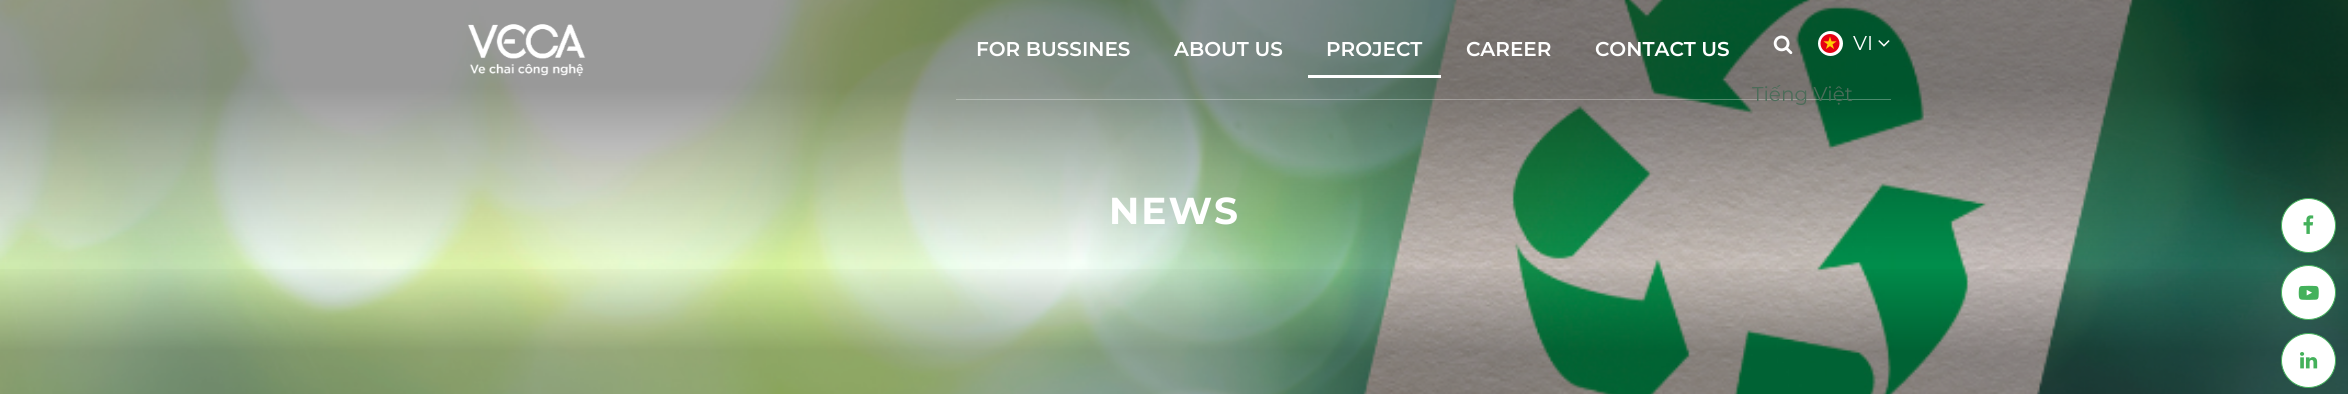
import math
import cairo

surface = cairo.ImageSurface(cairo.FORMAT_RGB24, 2348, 394)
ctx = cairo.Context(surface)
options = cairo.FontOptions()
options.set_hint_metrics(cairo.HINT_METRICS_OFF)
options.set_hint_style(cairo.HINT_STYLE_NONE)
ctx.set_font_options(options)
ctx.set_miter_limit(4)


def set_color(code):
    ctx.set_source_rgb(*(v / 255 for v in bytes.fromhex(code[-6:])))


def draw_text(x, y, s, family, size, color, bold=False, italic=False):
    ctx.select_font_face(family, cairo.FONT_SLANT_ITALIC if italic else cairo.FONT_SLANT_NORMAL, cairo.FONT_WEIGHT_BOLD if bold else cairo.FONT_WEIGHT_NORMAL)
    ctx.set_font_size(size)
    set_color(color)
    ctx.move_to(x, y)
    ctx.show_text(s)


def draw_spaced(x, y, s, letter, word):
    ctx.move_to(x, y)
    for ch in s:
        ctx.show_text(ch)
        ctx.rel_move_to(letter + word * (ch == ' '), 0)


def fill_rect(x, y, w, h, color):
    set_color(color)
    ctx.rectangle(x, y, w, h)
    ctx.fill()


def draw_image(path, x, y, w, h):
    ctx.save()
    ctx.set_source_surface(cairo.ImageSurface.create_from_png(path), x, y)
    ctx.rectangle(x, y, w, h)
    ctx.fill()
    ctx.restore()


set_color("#ffffff")
ctx.paint()
draw_image("assets/img5.png", 0, 0, 2348, 394)
draw_image("assets/img1.png", 468, 24, 118, 52)
ctx.set_source_rgba(1, 1, 1, 0.3)
ctx.rectangle(956, 99, 793, 1)
ctx.fill()
draw_text(976, 56, "FOR BUSSINES", "Montserrat SemiBold", 20, "#ffffff")
draw_text(1174, 56, "ABOUT US", "Montserrat SemiBold", 20, "#ffffff")
draw_text(1326, 56, "PROJECT", "Montserrat SemiBold", 20, "#ffffff")
fill_rect(1308, 75, 133, 3, "#ffffff")
draw_text(1466, 56, "CAREER", "Montserrat SemiBold", 20, "#ffffff")
draw_text(1595, 56, "CONTACT US", "Montserrat SemiBold", 20, "#ffffff")
ctx.set_source_rgba(1, 1, 1, 0.3)
ctx.rectangle(1749, 99, 142, 1)
ctx.fill()
draw_image("assets/img2.png", 1773, 35, 20, 20)
set_color("#ffffff")
ctx.arc(1830.5, 43.5, 11, 0, 2 * math.pi)
ctx.fill_preserve()
ctx.set_line_width(3)
ctx.stroke()
draw_image("assets/img3.png", 1820, 34, 20, 19)
draw_text(1853, 50, "VI", "Montserrat", 20, "#ffffff")
draw_image("assets/img4.png", 1878, 40, 12, 7)
draw_text(1752, 101, "Tiếng Việt", "Montserrat", 20, "#4c6c59")
ctx.select_font_face("Montserrat", cairo.FONT_SLANT_NORMAL, cairo.FONT_WEIGHT_BOLD)
ctx.set_font_size(37.5)
set_color("#ffffff")
draw_spaced(1109, 224, "NEWS", 2, 0)
gradient = cairo.LinearGradient(1174, 0, 1174, 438)
gradient.add_color_stop_rgba(0.6, 0, 0, 0, 0)
gradient.add_color_stop_rgba(0.8, 0, 0, 0, 0.3)
ctx.set_source(gradient)
ctx.rectangle(0, 269, 2348, 125)
ctx.fill()
set_color("#ffffff")
ctx.arc(2308.5, 225.5, 27, 0, 2 * math.pi)
ctx.fill_preserve()
set_color("#44b15b")
ctx.set_line_width(1)
ctx.stroke()
draw_image("assets/img6.png", 2303, 215, 11, 19)
set_color("#ffffff")
ctx.arc(2308.5, 292.5, 27, 0, 2 * math.pi)
ctx.fill_preserve()
set_color("#44b15b")
ctx.stroke()
draw_image("assets/img7.png", 2298, 285, 21, 15)
set_color("#ffffff")
ctx.arc(2308.5, 360.5, 27, 0, 2 * math.pi)
ctx.fill_preserve()
set_color("#44b15b")
ctx.stroke()
draw_image("assets/img8.png", 2300, 352, 18, 17)
surface.write_to_png("output.png")
